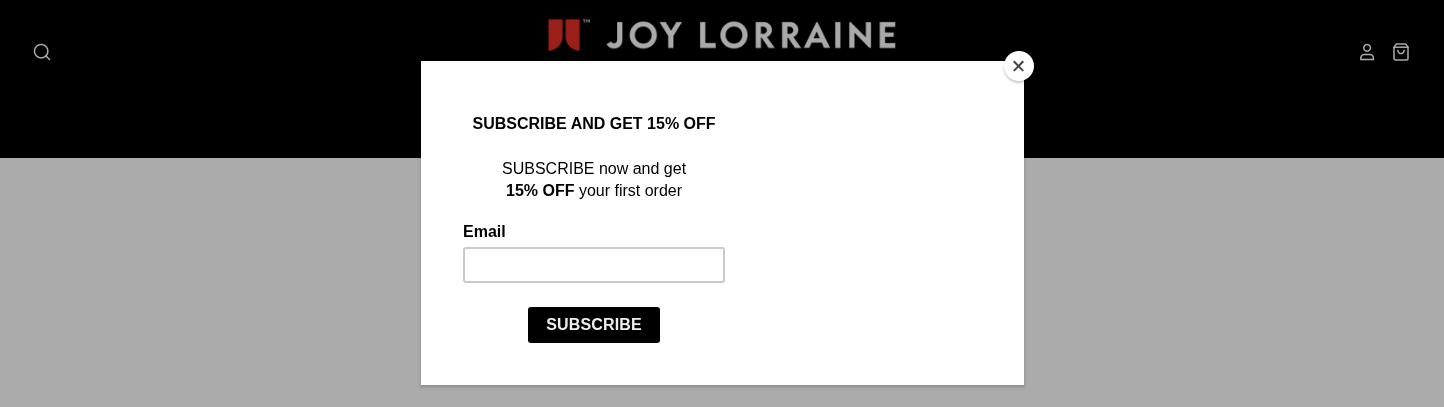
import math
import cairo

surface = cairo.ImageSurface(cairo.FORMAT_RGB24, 1444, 407)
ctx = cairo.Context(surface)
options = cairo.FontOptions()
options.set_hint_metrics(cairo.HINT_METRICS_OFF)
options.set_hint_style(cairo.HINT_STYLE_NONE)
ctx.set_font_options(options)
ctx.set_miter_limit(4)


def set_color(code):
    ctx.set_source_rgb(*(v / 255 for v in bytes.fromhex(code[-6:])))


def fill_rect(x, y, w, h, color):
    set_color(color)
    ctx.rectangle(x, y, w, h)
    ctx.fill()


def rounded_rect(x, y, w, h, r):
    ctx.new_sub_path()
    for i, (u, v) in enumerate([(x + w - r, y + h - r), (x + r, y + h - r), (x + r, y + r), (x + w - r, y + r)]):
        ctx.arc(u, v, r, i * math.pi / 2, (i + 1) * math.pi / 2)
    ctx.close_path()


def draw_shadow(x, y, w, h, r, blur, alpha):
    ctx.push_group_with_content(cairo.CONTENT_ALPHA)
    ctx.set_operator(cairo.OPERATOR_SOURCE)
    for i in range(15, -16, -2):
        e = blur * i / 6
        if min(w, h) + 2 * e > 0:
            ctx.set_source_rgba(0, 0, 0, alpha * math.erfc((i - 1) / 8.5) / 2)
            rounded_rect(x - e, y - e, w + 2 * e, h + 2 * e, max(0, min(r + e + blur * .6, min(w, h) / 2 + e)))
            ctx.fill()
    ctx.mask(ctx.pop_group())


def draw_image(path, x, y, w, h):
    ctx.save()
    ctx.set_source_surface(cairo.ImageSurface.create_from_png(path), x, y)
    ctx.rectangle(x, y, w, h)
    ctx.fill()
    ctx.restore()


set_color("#ababab")
ctx.paint()
fill_rect(0, 0, 1444, 158, "#000000")
draw_image("assets/img1.png", 33, 43, 18, 18)
draw_image("assets/img2.png", 547, 18, 349, 34)
draw_image("assets/img3.png", 1360, 43, 15, 18)
draw_image("assets/img4.png", 1393, 43, 16, 18)
set_color("#000000")
draw_shadow(421, 63, 603, 324, 0, 2, 0.2)
draw_image("assets/img5.png", 421, 61, 603, 324)
draw_shadow(1004, 53, 30, 30, 15, 1, 0.2)
set_color("#ffffff")
ctx.arc(1019, 66, 15, 0, 2 * math.pi)
ctx.fill()
set_color("#414141")
ctx.new_path()
ctx.move_to(1022.5, 60.5)
ctx.line_to(1024, 62)
ctx.line_to(1014.5, 71.5)
ctx.line_to(1013, 70.5)
ctx.close_path()
ctx.fill()
ctx.new_path()
ctx.move_to(1013, 62)
ctx.line_to(1014.5, 60.5)
ctx.line_to(1024, 70.5)
ctx.line_to(1022.5, 71.5)
ctx.close_path()
ctx.fill()
surface.write_to_png("output.png")
